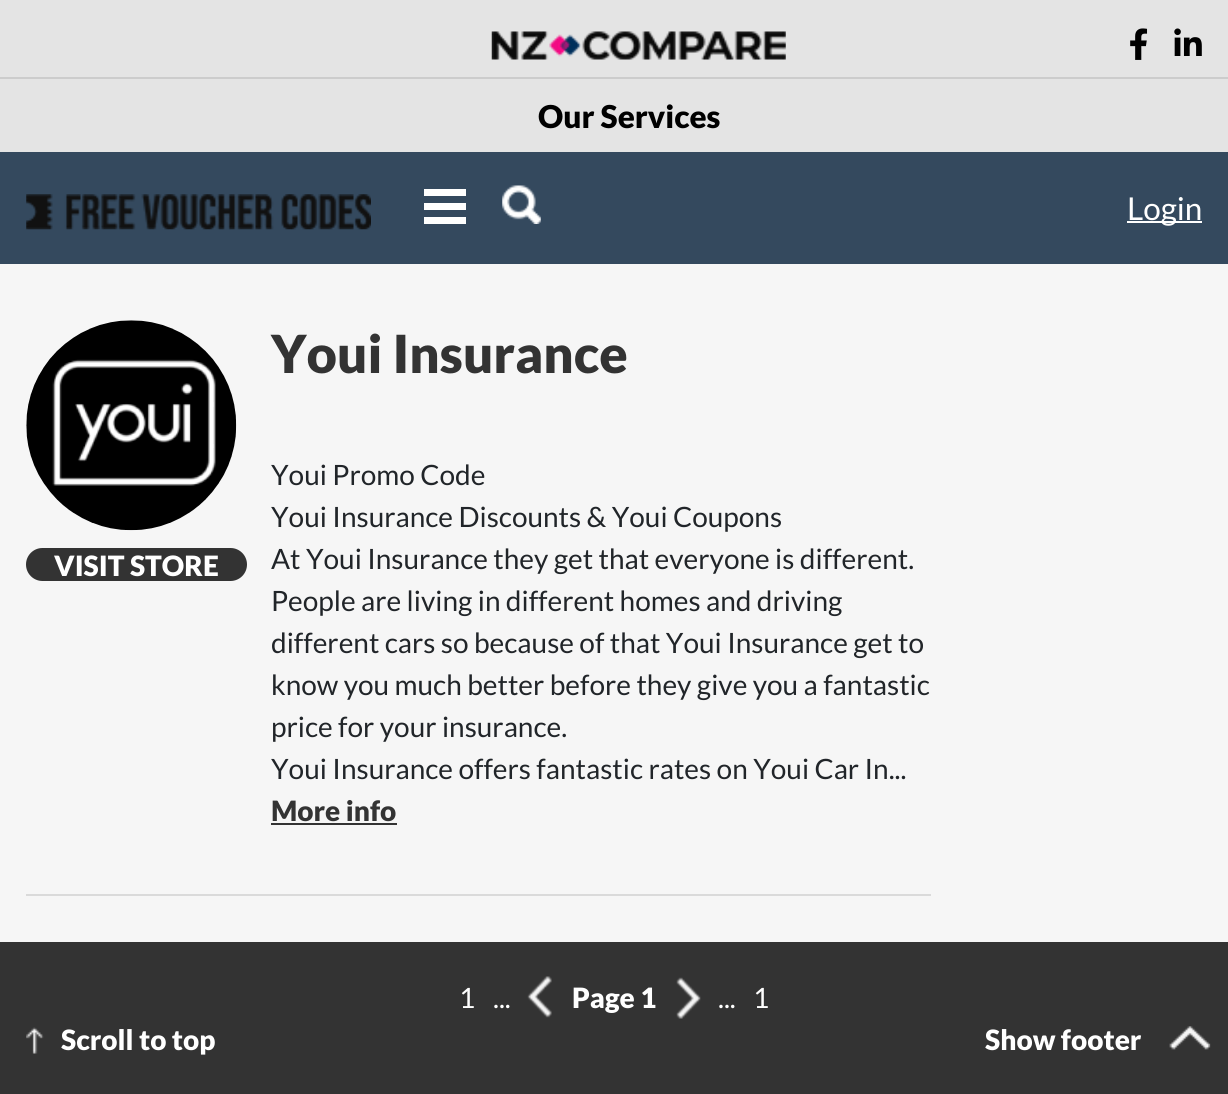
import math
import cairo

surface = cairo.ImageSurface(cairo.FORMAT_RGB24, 1228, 1094)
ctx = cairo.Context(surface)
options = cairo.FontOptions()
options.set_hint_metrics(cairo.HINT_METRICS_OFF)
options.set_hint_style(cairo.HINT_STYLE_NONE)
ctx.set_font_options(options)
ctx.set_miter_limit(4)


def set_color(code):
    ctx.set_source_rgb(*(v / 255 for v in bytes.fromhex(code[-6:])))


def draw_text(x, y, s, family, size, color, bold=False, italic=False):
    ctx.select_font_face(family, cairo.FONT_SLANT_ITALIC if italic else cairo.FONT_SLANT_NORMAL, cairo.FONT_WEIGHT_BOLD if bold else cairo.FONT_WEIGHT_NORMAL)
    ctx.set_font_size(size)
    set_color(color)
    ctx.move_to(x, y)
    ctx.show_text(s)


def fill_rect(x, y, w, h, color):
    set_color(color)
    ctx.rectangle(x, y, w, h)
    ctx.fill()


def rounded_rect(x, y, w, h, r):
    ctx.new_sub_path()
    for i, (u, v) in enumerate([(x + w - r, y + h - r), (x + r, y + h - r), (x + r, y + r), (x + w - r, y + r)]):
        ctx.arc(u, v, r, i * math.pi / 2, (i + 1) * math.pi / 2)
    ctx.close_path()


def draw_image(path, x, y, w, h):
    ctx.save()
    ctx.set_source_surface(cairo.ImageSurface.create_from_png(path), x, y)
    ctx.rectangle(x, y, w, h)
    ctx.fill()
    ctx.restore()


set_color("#f6f6f6")
ctx.paint()
fill_rect(0, 0, 1228, 152, "#e4e4e4")
draw_image("assets/img1.png", 491, 31, 295, 29)
draw_image("assets/img2.png", 1130, 28, 18, 32)
draw_image("assets/img3.png", 1174, 28, 28, 28)
fill_rect(0, 77, 1228, 2, "#cccccc")
draw_text(538, 128, "Our Services", "Lato Black", 31.5, "#000000")
fill_rect(0, 152, 1228, 112, "#34495e")
draw_image("assets/img4.png", 26, 194, 345, 36)
fill_rect(424, 189, 42, 7, "#ffffff")
fill_rect(424, 203, 42, 7, "#ffffff")
fill_rect(424, 217, 42, 7, "#ffffff")
draw_image("assets/img5.png", 502, 185, 39, 39)
fill_rect(1127, 221, 75, 2, "#ffffff")
draw_text(1127, 220, "Login", "Lato", 31.5, "#ffffff")
fill_rect(26, 894, 905, 2, "#dadada")
set_color("#ffffff")
ctx.new_path()
ctx.arc(131, 425, 105, 0, 2 * math.pi)
ctx.fill()
draw_image("assets/img6.png", 26, 320, 211, 211)
set_color("#333333")
rounded_rect(26, 548, 221, 33, 16.5)
ctx.fill()
draw_text(54, 576, "VISIT STORE", "Lato Black", 28, "#ffffff")
draw_text(271, 373, "Youi Insurance", "Lato Black", 52.5, "#333333")
draw_text(271, 485, "Youi Promo Code", "Lato", 28, "#212529")
draw_text(271, 527, "Youi Insurance Discounts & Youi Coupons", "Lato", 28, "#212529")
draw_text(271, 569, "At Youi Insurance they get that everyone is different.", "Lato", 28, "#212529")
draw_text(271, 611, "People are living in different homes and driving", "Lato", 28, "#212529")
draw_text(271, 653, "different cars so because of that Youi Insurance get to", "Lato", 28, "#212529")
draw_text(271, 695, "know you much better before they give you a fantastic", "Lato", 28, "#212529")
draw_text(271, 737, "price for your insurance.", "Lato", 28, "#212529")
draw_text(271, 779, "Youi Insurance offers fantastic rates on Youi Car In...", "Lato", 28, "#212529")
draw_text(271, 821, "More info", "Lato Black", 28, "#333333")
fill_rect(271, 823, 126, 2, "#333333")
fill_rect(0, 942, 1228, 152, "#333333")
draw_text(459, 1008, "1", "Lato", 28, "#ffffff")
draw_text(493, 1008, "...", "Lato", 28, "#ffffff")
draw_image("assets/img7.png", 527, 976, 25, 42)
draw_text(572, 1008, "Page 1", "Lato Black", 28, "#ffffff")
draw_image("assets/img8.png", 676, 977, 25, 42)
draw_text(718, 1008, "...", "Lato", 28, "#ffffff")
draw_text(753, 1008, "1", "Lato", 28, "#ffffff")
draw_image("assets/img9.png", 26, 1027, 18, 27)
draw_text(61, 1050, "Scroll to top", "Lato Black", 28, "#ffffff")
draw_text(985, 1050, "Show footer", "Lato Black", 28, "#ffffff")
draw_image("assets/img10.png", 1169, 1026, 42, 24)
surface.write_to_png("output.png")
